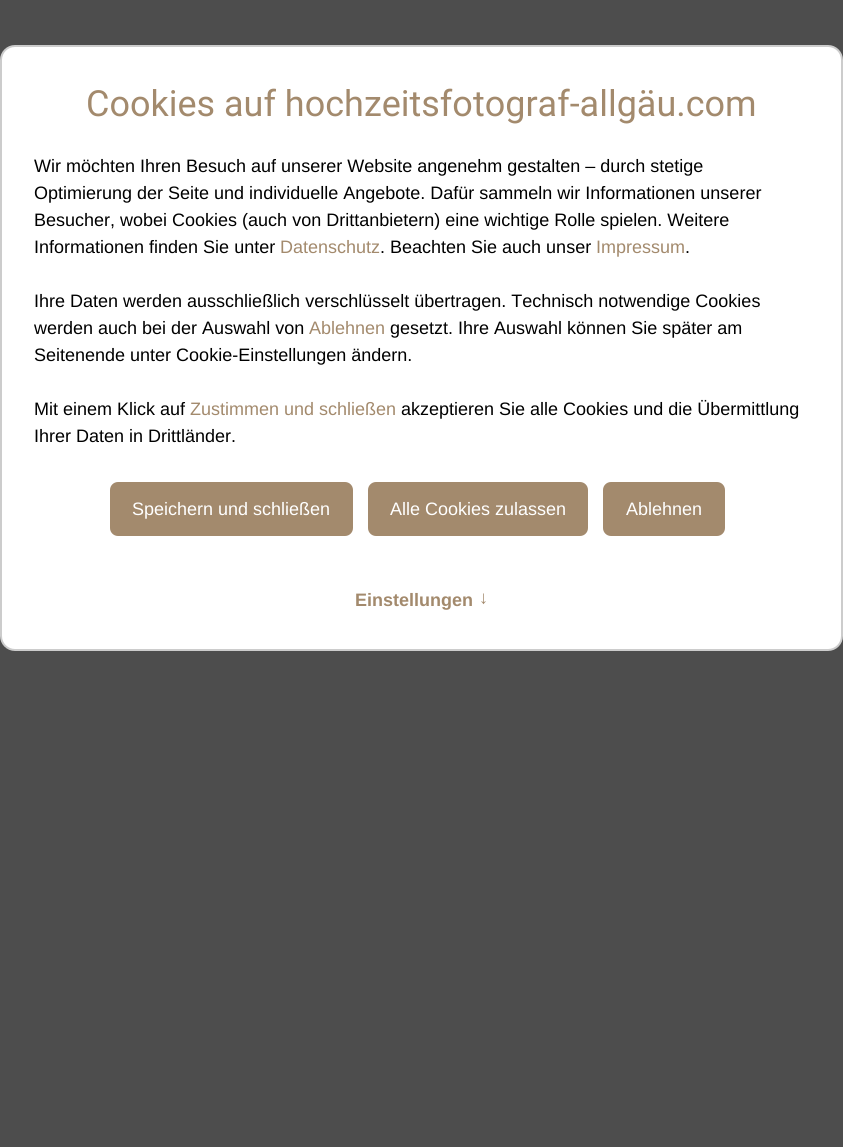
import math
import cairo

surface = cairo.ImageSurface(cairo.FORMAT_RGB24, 843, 1147)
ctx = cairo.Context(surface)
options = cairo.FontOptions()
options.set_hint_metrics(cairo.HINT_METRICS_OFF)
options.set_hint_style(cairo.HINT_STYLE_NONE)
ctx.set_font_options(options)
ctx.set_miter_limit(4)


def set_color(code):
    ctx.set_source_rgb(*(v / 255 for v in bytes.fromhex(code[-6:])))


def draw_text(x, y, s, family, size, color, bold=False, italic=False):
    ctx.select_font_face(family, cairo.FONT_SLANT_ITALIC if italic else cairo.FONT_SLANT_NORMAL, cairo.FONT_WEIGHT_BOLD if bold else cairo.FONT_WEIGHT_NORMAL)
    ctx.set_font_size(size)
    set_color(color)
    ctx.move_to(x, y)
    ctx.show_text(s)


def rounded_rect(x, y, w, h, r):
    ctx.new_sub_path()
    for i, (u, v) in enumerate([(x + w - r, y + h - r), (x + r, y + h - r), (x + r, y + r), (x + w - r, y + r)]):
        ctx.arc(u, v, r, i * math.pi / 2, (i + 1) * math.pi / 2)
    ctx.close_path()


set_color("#4d4d4d")
ctx.paint()
set_color("#ffffff")
rounded_rect(1, 46, 841, 604, 14)
ctx.fill_preserve()
set_color("#cccccc")
ctx.stroke()
draw_text(86, 116, "Cookies auf hochzeitsfotograf-allgäu.com", "Roboto", 36, "#a38a6d")
draw_text(34, 172, "Wir möchten Ihren Besuch auf unserer Website angenehm gestalten – durch stetige", "Liberation Sans", 18, "#000000")
draw_text(34, 199, "Optimierung der Seite und individuelle Angebote. Dafür sammeln wir Informationen unserer", "Liberation Sans", 18, "#000000")
draw_text(34, 226, "Besucher, wobei Cookies (auch von Drittanbietern) eine wichtige Rolle spielen. Weitere", "Liberation Sans", 18, "#000000")
draw_text(34, 253, "Informationen finden Sie unter", "Liberation Sans", 18, "#000000")
draw_text(280, 253, "Datenschutz", "Liberation Sans", 18, "#a38a6d")
draw_text(380, 253, ". Beachten Sie auch unser", "Liberation Sans", 18, "#000000")
draw_text(596, 253, "Impressum", "Liberation Sans", 18, "#a38a6d")
draw_text(685, 253, ".", "Liberation Sans", 18, "#000000")
draw_text(34, 307, "Ihre Daten werden ausschließlich verschlüsselt übertragen. Technisch notwendige Cookies", "Liberation Sans", 18, "#000000")
draw_text(34, 334, "werden auch bei der Auswahl von", "Liberation Sans", 18, "#000000")
draw_text(309, 334, "Ablehnen", "Liberation Sans", 18, "#a38a6d")
draw_text(390, 334, "gesetzt. Ihre Auswahl können Sie später am", "Liberation Sans", 18, "#000000")
draw_text(34, 361, "Seitenende unter Cookie-Einstellungen ändern.", "Liberation Sans", 18, "#000000")
draw_text(34, 415, "Mit einem Klick auf", "Liberation Sans", 18, "#000000")
draw_text(190, 415, "Zustimmen und schließen", "Liberation Sans", 18, "#a38a6d")
draw_text(401, 415, "akzeptieren Sie alle Cookies und die Übermittlung", "Liberation Sans", 18, "#000000")
draw_text(34, 442, "Ihrer Daten in Drittländer.", "Liberation Sans", 18, "#000000")
set_color("#a38a6d")
rounded_rect(108.5, 480.5, 246, 57, 9.5)
ctx.fill_preserve()
set_color("#ffffff")
ctx.set_line_width(3)
ctx.stroke()
draw_text(132, 515, "Speichern und schließen", "Liberation Sans", 18, "#ffffff")
set_color("#a38a6d")
rounded_rect(366.5, 480.5, 223, 57, 9.5)
ctx.fill_preserve()
set_color("#ffffff")
ctx.stroke()
draw_text(390, 515, "Alle Cookies zulassen", "Liberation Sans", 18, "#ffffff")
set_color("#a38a6d")
rounded_rect(601.5, 480.5, 125, 57, 9.5)
ctx.fill_preserve()
set_color("#ffffff")
ctx.stroke()
draw_text(626, 515, "Ablehnen", "Liberation Sans", 18, "#ffffff")
draw_text(355, 606, "Einstellungen", "Liberation Sans", 18, "#a38a6d", bold=True)
ctx.save()
ctx.translate(488, 594)
ctx.rotate(180 * math.pi / 180)
draw_text(0, 0, "↑", "Liberation Sans", 18, "#a38a6d", bold=True)
ctx.restore()
surface.write_to_png("output.png")
